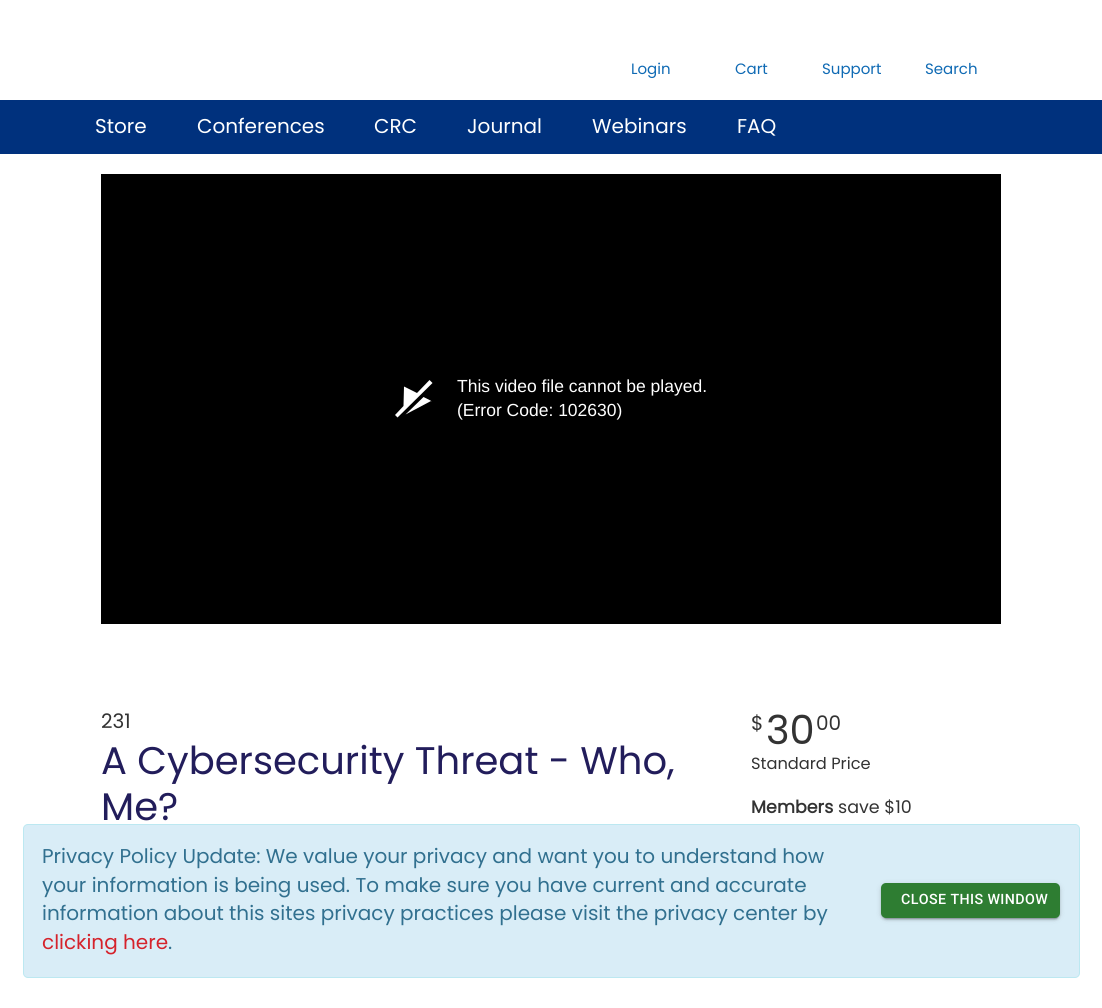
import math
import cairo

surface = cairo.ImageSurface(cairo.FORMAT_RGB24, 1102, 1008)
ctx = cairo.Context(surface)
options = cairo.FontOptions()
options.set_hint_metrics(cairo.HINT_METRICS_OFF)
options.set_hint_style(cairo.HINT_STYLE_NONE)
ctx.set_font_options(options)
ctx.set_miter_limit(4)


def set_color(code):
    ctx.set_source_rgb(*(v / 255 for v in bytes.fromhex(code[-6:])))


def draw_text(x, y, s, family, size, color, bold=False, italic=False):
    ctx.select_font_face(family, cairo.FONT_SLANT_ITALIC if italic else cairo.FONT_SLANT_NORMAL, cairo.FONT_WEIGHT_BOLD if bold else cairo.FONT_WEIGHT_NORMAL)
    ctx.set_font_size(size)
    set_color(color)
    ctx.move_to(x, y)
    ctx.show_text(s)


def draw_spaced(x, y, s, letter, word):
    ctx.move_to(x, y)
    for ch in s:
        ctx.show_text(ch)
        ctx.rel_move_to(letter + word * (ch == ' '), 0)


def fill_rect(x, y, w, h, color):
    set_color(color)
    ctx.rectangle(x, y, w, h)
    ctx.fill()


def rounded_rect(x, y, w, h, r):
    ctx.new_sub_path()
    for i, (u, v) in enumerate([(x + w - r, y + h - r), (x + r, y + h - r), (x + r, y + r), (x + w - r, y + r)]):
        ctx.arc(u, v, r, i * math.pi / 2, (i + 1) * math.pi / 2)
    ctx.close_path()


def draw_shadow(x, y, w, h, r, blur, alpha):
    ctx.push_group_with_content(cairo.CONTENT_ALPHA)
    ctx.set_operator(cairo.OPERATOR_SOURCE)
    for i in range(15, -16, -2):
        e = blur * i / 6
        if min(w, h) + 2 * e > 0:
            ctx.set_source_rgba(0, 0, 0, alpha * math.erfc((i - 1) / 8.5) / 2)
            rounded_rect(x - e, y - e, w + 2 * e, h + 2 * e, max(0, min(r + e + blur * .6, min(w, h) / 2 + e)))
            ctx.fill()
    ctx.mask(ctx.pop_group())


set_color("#ffffff")
ctx.paint()
draw_text(631, 74, "Login", "Poppins", 15, "#0f6ab4")
draw_text(735, 74, "Cart", "Poppins", 15, "#0f6ab4")
draw_text(822, 74, "Support", "Poppins", 15, "#0f6ab4")
draw_text(925, 74, "Search", "Poppins", 15, "#0f6ab4")
fill_rect(0, 100, 1102, 54, "#00317d")
draw_text(95, 133, "Store", "Poppins", 20, "#ffffff")
draw_text(197, 133, "Conferences", "Poppins", 20, "#ffffff")
draw_text(374, 133, "CRC", "Poppins", 20, "#ffffff")
draw_text(467, 133, "Journal", "Poppins", 20, "#ffffff")
draw_text(592, 133, "Webinars", "Poppins", 20, "#ffffff")
draw_text(737, 133, "FAQ", "Poppins", 20, "#ffffff")
fill_rect(101, 174, 900, 450, "#000000")
set_color("#ffffff")
ctx.new_path()
ctx.move_to(431, 401)
ctx.line_to(405.5, 414.5)
ctx.line_to(423.5, 397)
ctx.curve_to(430.5, 400.5, 432, 401, 431, 401.5)
ctx.close_path()
ctx.move_to(429.5, 380)
ctx.line_to(417, 393)
ctx.line_to(404, 386.5)
ctx.line_to(403.5, 406)
ctx.line_to(395, 415)
ctx.line_to(397.5, 417.5)
ctx.line_to(432.5, 383)
ctx.close_path()
ctx.fill()
draw_text(457, 392, "This video file cannot be played.", "Liberation Sans", 17.5, "#ffffff")
draw_text(457, 416, "(Error Code: 102630)", "Liberation Sans", 17.5, "#ffffff")
draw_text(101, 728, "231", "Poppins", 20, "#333333")
draw_text(101, 774, "A Cybersecurity Threat - Who,", "Poppins", 38.5, "#221d5b")
draw_text(101, 820, "Me?", "Poppins", 38.5, "#221d5b")
draw_text(751, 730, "$", "Poppins", 20, "#333333")
draw_text(766, 744, "30", "Poppins", 40, "#333333")
draw_text(816, 730, "00", "Poppins", 20, "#333333")
draw_text(751, 769, "Standard Price", "Poppins", 16.25, "#333333")
draw_text(751, 813, "Members", "Poppins", 17.5, "#333333", bold=True)
draw_text(838, 813, "save $10", "Poppins", 17.5, "#333333")
set_color("#d9edf7")
rounded_rect(23.5, 824.5, 1056, 153, 4.5)
ctx.fill_preserve()
set_color("#bce8f1")
ctx.set_line_width(1)
ctx.stroke()
draw_text(42, 863, "Privacy Policy Update: We value your privacy and want you to understand how", "Poppins", 20, "#31708f")
draw_text(42, 892, "your information is being used. To make sure you have current and accurate", "Poppins", 20, "#31708f")
draw_text(42, 920, "information about this sites privacy practices please visit the privacy center by", "Poppins", 20, "#31708f")
draw_text(42, 949, "clicking here", "Poppins", 20, "#d5222b")
draw_text(168, 949, ".", "Poppins", 20, "#31708f")
set_color("#000000")
draw_shadow(881, 884, 179, 35, 5, 3, 0.12)
draw_shadow(881, 885, 179, 35, 5, 1, 0.14)
draw_shadow(884, 889, 174, 30, 2.5, 0.5, 0.2)
set_color("#2e7d32")
rounded_rect(881, 883, 179, 35, 5)
ctx.fill()
ctx.select_font_face("Roboto Medium")
ctx.set_font_size(14.25)
set_color("#ffffff")
draw_spaced(901, 904, "CLOSE THIS WINDOW", 0.4, 0)
surface.write_to_png("output.png")
